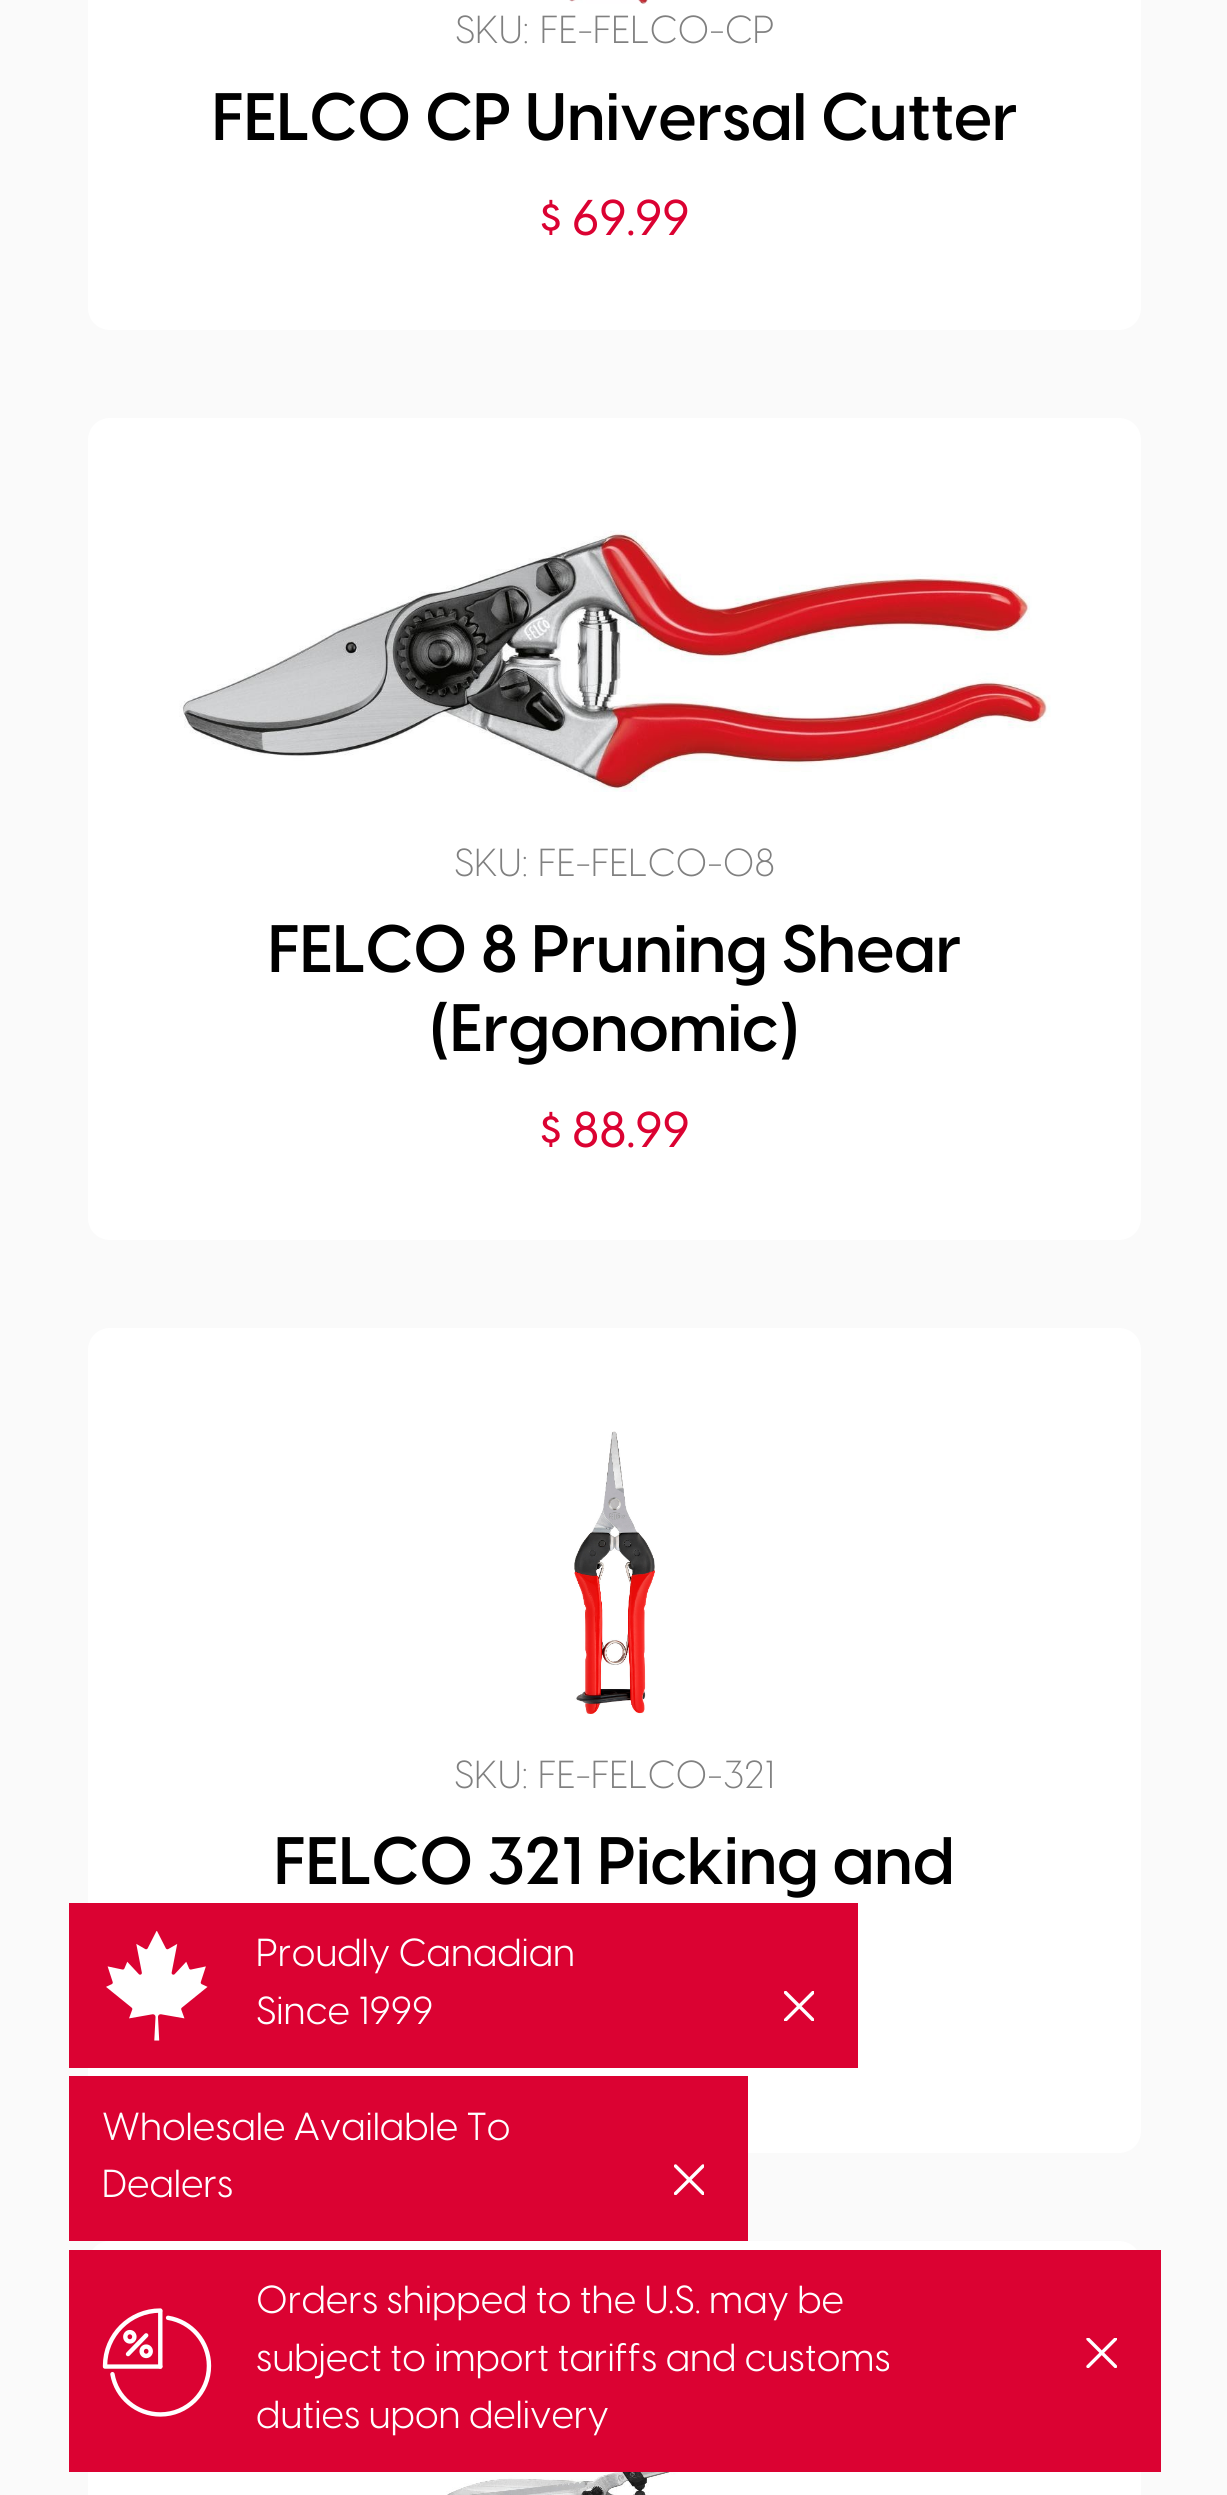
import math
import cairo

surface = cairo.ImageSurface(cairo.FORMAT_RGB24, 1227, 2495)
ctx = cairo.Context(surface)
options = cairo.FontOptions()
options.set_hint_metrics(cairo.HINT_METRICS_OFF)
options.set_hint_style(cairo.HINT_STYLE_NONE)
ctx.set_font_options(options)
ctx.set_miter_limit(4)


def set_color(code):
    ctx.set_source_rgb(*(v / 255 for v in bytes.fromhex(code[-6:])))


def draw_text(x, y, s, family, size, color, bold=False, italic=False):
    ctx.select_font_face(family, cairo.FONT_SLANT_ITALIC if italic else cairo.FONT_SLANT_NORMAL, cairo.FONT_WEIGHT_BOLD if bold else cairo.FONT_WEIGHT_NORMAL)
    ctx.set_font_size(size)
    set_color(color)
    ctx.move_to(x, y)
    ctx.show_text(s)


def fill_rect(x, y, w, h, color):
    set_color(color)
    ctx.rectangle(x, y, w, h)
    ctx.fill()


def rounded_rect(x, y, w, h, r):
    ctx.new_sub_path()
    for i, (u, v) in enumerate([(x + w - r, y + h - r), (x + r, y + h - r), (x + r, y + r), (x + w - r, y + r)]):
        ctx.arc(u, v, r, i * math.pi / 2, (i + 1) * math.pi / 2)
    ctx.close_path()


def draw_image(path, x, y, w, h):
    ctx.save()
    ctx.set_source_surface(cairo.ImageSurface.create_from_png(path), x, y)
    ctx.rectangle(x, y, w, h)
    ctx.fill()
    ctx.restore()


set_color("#fafafa")
ctx.paint()
set_color("#ffffff")
rounded_rect(88, -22, 1053, 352, 22)
ctx.fill()
draw_image("assets/img1.png", 569, 0, 79, 4)
draw_text(455, 43, "SKU:", "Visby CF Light", 38.5, "#808080")
draw_text(540, 43, "FE-FELCO-CP", "Visby CF Light", 38.5, "#808080")
draw_text(212, 140, "FELCO CP Universal Cutter", "Visby CF SemiBold", 66, "#000000")
draw_text(540, 235, "$", "Visby CF Medium", 49.5, "#db0232")
draw_text(572, 235, "69.99", "Visby CF Medium", 49.5, "#db0232")
set_color("#ffffff")
rounded_rect(88, 418, 1053, 822, 22)
ctx.fill()
draw_image("assets/img2.png", 179, 530, 872, 262)
draw_text(454, 876, "SKU:", "Visby CF Light", 38.5, "#808080")
draw_text(538, 876, "FE-FELCO-08", "Visby CF Light", 38.5, "#808080")
draw_text(268, 972, "FELCO 8 Pruning Shear", "Visby CF SemiBold", 66, "#000000")
draw_text(430, 1051, "(Ergonomic)", "Visby CF SemiBold", 66, "#000000")
draw_text(540, 1147, "$", "Visby CF Medium", 49.5, "#db0232")
draw_text(572, 1147, "88.99", "Visby CF Medium", 49.5, "#db0232")
set_color("#ffffff")
rounded_rect(88, 1328, 1053, 825, 22)
ctx.fill()
draw_image("assets/img3.png", 574, 1431, 81, 283)
draw_text(454, 1788, "SKU:", "Visby CF Light", 38.5, "#808080")
draw_text(538, 1788, "FE-FELCO-321", "Visby CF Light", 38.5, "#808080")
draw_text(274, 1884, "FELCO 321 Picking and", "Visby CF SemiBold", 66, "#000000")
set_color("#ffffff")
rounded_rect(88, 2241, 1053, 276, 22)
ctx.fill()
draw_image("assets/img4.png", 446, 2472, 333, 23)
fill_rect(69, 1903, 789, 165, "#db0232")
draw_image("assets/img5.png", 106, 1931, 102, 110)
draw_text(256, 1966, "Proudly Canadian", "Visby CF", 38.5, "#ffffff")
draw_text(256, 2024, "Since 1999", "Visby CF", 38.5, "#ffffff")
ctx.save()
ctx.rectangle(784, 1991, 30, 30)
ctx.clip()
ctx.new_path()
ctx.move_to(785.5, 2020)
ctx.line_to(813, 1992.5)
ctx.move_to(813, 2020)
ctx.line_to(785.5, 1992.5)
ctx.set_line_width(3.4)
ctx.set_line_cap(cairo.LINE_CAP_ROUND)
ctx.set_line_join(cairo.LINE_JOIN_ROUND)
ctx.stroke()
ctx.restore()
fill_rect(69, 2076, 679, 165, "#db0232")
draw_text(102, 2140, "Wholesale Available To", "Visby CF", 38.5, "#ffffff")
draw_text(102, 2197, "Dealers", "Visby CF", 38.5, "#ffffff")
ctx.save()
ctx.rectangle(674, 2164, 30, 31)
ctx.clip()
ctx.new_path()
ctx.move_to(675.5, 2193.5)
ctx.line_to(703, 2166)
ctx.move_to(703, 2193.5)
ctx.line_to(675.5, 2166)
ctx.set_line_width(3.4)
ctx.set_line_cap(cairo.LINE_CAP_ROUND)
ctx.set_line_join(cairo.LINE_JOIN_ROUND)
ctx.stroke()
ctx.restore()
fill_rect(69, 2250, 1092, 222, "#db0232")
draw_image("assets/img6.png", 102, 2308, 110, 109)
draw_text(256, 2313, "Orders shipped to the U.S. may be", "Visby CF", 38.5, "#ffffff")
draw_text(256, 2371, "subject to import tariffs and customs", "Visby CF", 38.5, "#ffffff")
draw_text(256, 2428, "duties upon delivery", "Visby CF", 38.5, "#ffffff")
ctx.save()
ctx.rectangle(1086, 2338, 31, 30)
ctx.clip()
ctx.new_path()
ctx.move_to(1088, 2366.5)
ctx.line_to(1115.5, 2339)
ctx.move_to(1115.5, 2366.5)
ctx.line_to(1088, 2339)
ctx.set_line_width(3.4)
ctx.set_line_cap(cairo.LINE_CAP_ROUND)
ctx.set_line_join(cairo.LINE_JOIN_ROUND)
ctx.stroke()
ctx.restore()
surface.write_to_png("output.png")
